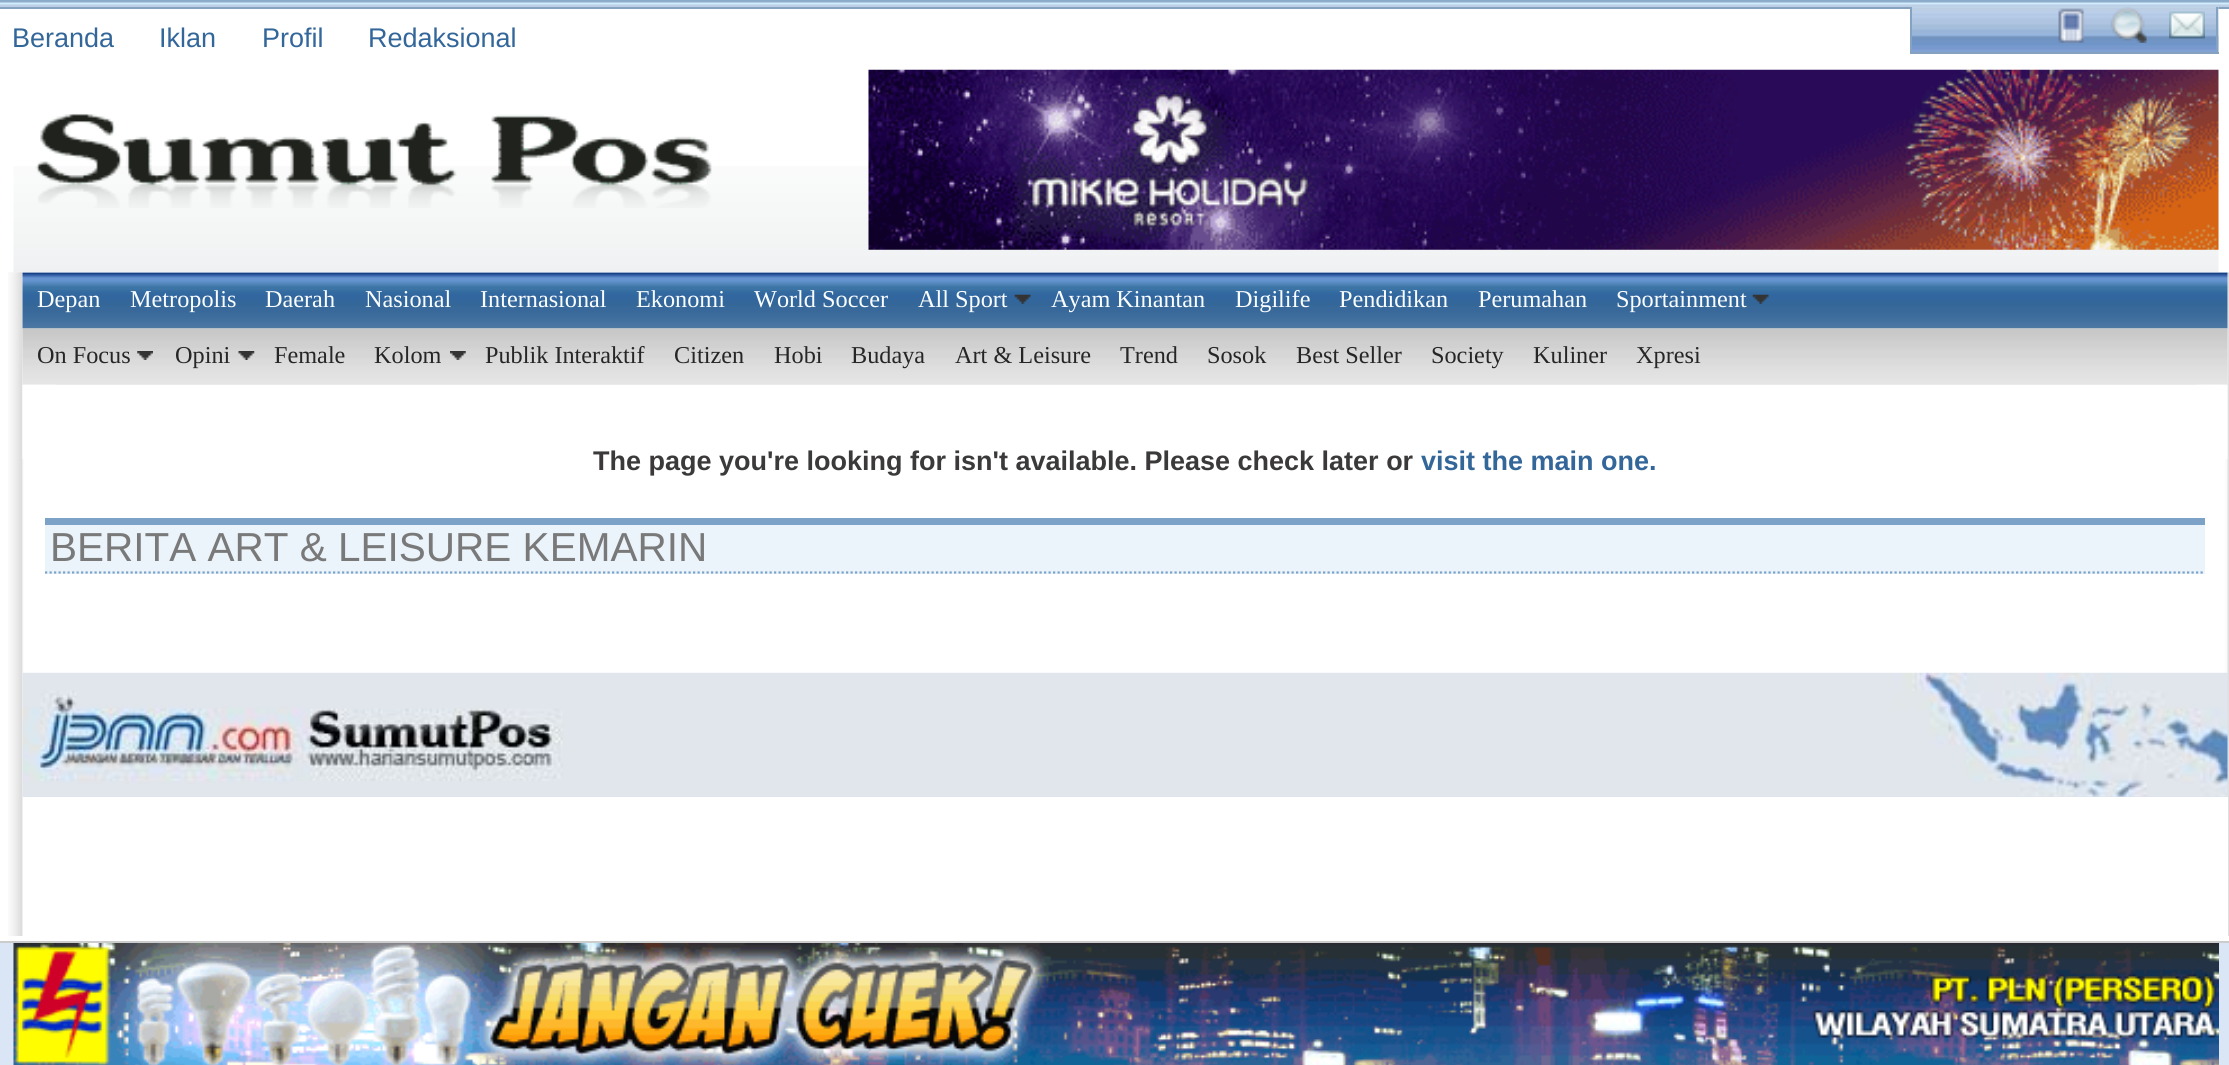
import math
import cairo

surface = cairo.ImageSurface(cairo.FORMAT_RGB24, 2229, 1065)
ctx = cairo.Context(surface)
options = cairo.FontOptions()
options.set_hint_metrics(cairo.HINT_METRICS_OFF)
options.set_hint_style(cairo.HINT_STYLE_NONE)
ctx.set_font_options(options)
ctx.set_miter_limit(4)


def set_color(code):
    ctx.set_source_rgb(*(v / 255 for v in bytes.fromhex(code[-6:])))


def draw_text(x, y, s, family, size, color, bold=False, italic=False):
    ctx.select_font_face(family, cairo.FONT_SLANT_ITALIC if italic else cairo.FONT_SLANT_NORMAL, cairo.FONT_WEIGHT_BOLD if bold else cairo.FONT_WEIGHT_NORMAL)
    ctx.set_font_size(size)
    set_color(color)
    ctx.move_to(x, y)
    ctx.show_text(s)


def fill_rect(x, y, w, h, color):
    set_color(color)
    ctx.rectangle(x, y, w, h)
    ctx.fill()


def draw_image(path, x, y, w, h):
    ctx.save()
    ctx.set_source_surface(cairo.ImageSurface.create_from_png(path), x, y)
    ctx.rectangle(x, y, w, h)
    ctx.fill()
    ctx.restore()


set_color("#ffffff")
ctx.paint()
draw_image("assets/img1.png", 0, 0, 2229, 7)
fill_rect(0, 7, 2229, 2, "#86a2c1")
draw_text(12, 47, "Beranda", "Liberation Sans", 27, "#336699")
draw_text(159, 47, "Iklan", "Liberation Sans", 27, "#336699")
draw_text(262, 47, "Profil", "Liberation Sans", 27, "#336699")
draw_text(368, 47, "Redaksional", "Liberation Sans", 27, "#336699")
draw_image("assets/img2.png", 1910, 6, 309, 46)
fill_rect(2216, 7, 2, 47, "#86a2c1")
fill_rect(1910, 52, 309, 2, "#86a2c1")
fill_rect(1910, 7, 2, 47, "#86a2c1")
draw_image("assets/img3.png", 2058, 8, 27, 35)
draw_image("assets/img4.png", 2110, 7, 37, 36)
draw_image("assets/img5.png", 2169, 11, 36, 28)
draw_image("assets/img6.png", 13, 166, 2206, 107)
draw_image("assets/img7.png", 35, 113, 677, 95)
draw_image("assets/img8.png", 868, 69, 1351, 181)
draw_image("assets/img9.png", 8, 272, 2221, 664)
draw_image("assets/img10.png", 22, 272, 2206, 57)
draw_text(37, 307, "Depan", "Liberation Serif", 24.25, "#fafdff")
draw_text(130, 307, "Metropolis", "Liberation Serif", 24.25, "#fafdff")
draw_text(265, 307, "Daerah", "Liberation Serif", 24.25, "#fafdff")
draw_text(365, 307, "Nasional", "Liberation Serif", 24.25, "#fafdff")
draw_text(480, 307, "Internasional", "Liberation Serif", 24.25, "#fafdff")
draw_text(636, 307, "Ekonomi", "Liberation Serif", 24.25, "#fafdff")
draw_text(754, 307, "World Soccer", "Liberation Serif", 24.25, "#fafdff")
draw_image("assets/img11.png", 1014, 294, 17, 10)
draw_text(918, 307, "All Sport", "Liberation Serif", 24.25, "#fafdff")
draw_text(1051, 307, "Ayam Kinantan", "Liberation Serif", 24.25, "#fafdff")
draw_text(1235, 307, "Digilife", "Liberation Serif", 24.25, "#fafdff")
draw_text(1339, 307, "Pendidikan", "Liberation Serif", 24.25, "#fafdff")
draw_text(1478, 307, "Perumahan", "Liberation Serif", 24.25, "#fafdff")
draw_image("assets/img11.png", 1752, 294, 17, 10)
draw_text(1616, 307, "Sportainment", "Liberation Serif", 24.25, "#fafdff")
draw_image("assets/img12.png", 22, 328, 2206, 57)
draw_image("assets/img13.png", 137, 351, 16, 9)
draw_text(37, 363, "On Focus", "Liberation Serif", 24.25, "#262626")
draw_image("assets/img14.png", 238, 351, 17, 9)
draw_text(175, 363, "Opini", "Liberation Serif", 24.25, "#262626")
draw_text(274, 363, "Female", "Liberation Serif", 24.25, "#262626")
draw_image("assets/img15.png", 450, 351, 16, 9)
draw_text(374, 363, "Kolom", "Liberation Serif", 24.25, "#262626")
draw_text(485, 363, "Publik Interaktif", "Liberation Serif", 24.25, "#262626")
draw_text(674, 363, "Citizen", "Liberation Serif", 24.25, "#262626")
draw_text(774, 363, "Hobi", "Liberation Serif", 24.25, "#262626")
draw_text(851, 363, "Budaya", "Liberation Serif", 24.25, "#262626")
draw_text(955, 363, "Art & Leisure", "Liberation Serif", 24.25, "#262626")
draw_text(1120, 363, "Trend", "Liberation Serif", 24.25, "#262626")
draw_text(1207, 363, "Sosok", "Liberation Serif", 24.25, "#262626")
draw_text(1296, 363, "Best Seller", "Liberation Serif", 24.25, "#262626")
draw_text(1431, 363, "Society", "Liberation Serif", 24.25, "#262626")
draw_text(1533, 363, "Kuliner", "Liberation Serif", 24.25, "#262626")
draw_text(1636, 363, "Xpresi", "Liberation Serif", 24.25, "#262626")
draw_image("assets/img16.png", 22, 384, 34, 75)
draw_image("assets/img17.png", 2197, 384, 31, 75)
draw_text(593, 470, "The page you're looking for isn't available. Please check later or", "Liberation Sans", 27, "#3b3939", bold=True)
draw_text(1421, 470, "visit the main one.", "Liberation Sans", 27, "#336699", bold=True)
fill_rect(45, 525, 2160, 49, "#ebf4fb")
fill_rect(45, 518, 2160, 7, "#7da2c7")
ctx.new_path()
ctx.move_to(45, 572.5)
ctx.line_to(2205, 572.5)
ctx.set_line_width(2.2)
ctx.set_dash([2.25, 2.25])
ctx.stroke()
draw_text(50, 561, "BERITA ART & LEISURE KEMARIN", "Liberation Sans", 40.5, "#797979")
fill_rect(23, 673, 2205, 124, "#d8e2ee")
draw_image("assets/img18.png", 22, 672, 2206, 125)
fill_rect(23, 797, 2205, 139, "#ffffff")
fill_rect(0, 943, 2229, 122, "#dae6f6")
fill_rect(0, 941, 2229, 2, "#cccccc")
draw_image("assets/img19.png", 13, 943, 2206, 122)
surface.write_to_png("output.png")
